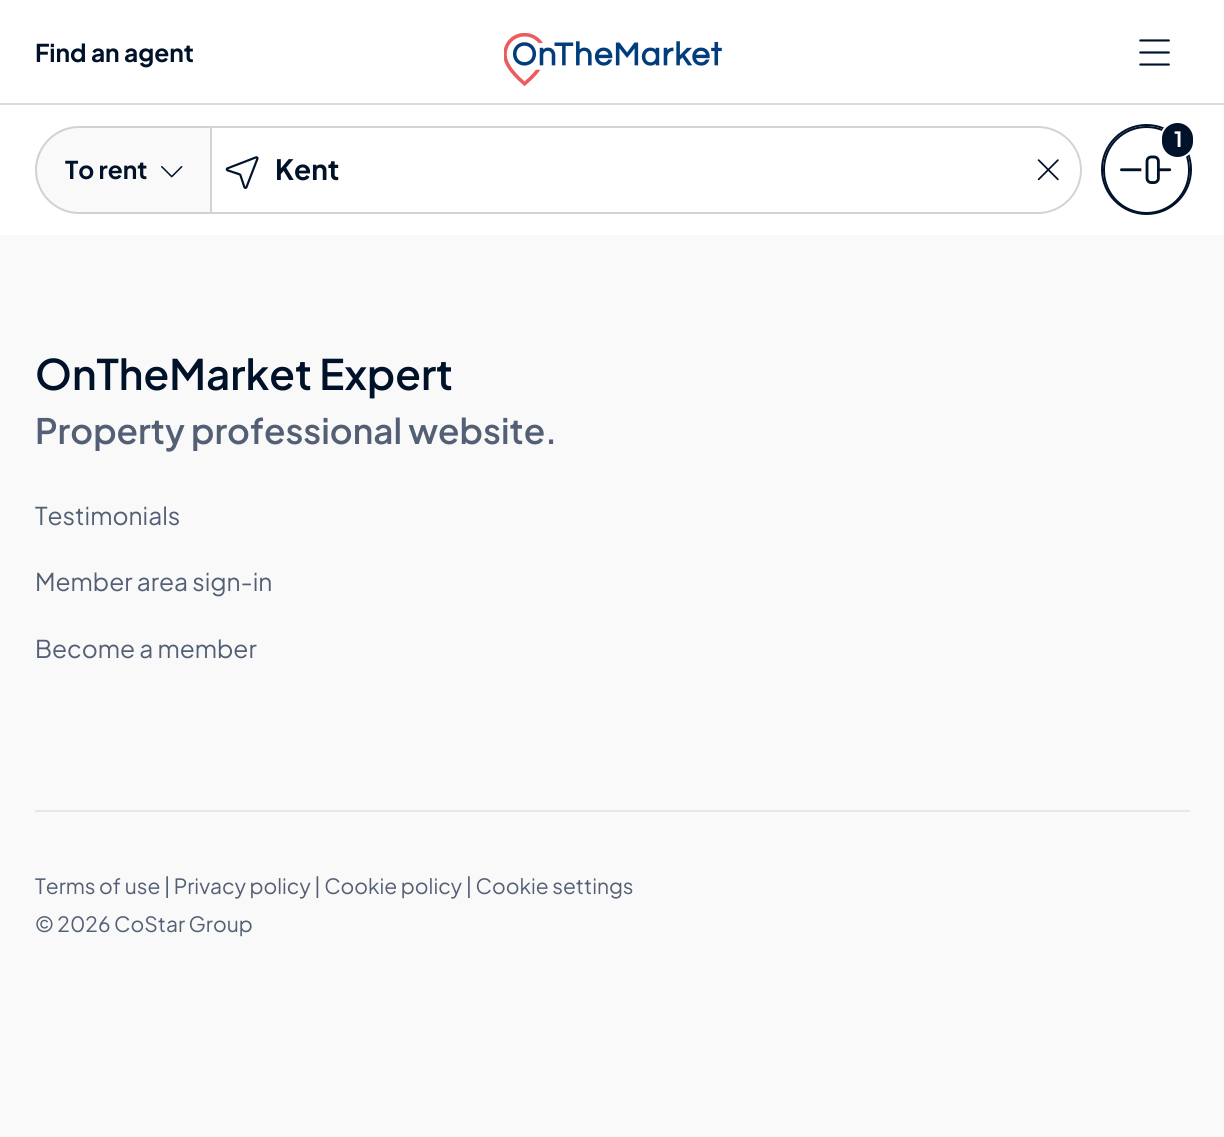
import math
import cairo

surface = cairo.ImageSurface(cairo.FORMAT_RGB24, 1224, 1137)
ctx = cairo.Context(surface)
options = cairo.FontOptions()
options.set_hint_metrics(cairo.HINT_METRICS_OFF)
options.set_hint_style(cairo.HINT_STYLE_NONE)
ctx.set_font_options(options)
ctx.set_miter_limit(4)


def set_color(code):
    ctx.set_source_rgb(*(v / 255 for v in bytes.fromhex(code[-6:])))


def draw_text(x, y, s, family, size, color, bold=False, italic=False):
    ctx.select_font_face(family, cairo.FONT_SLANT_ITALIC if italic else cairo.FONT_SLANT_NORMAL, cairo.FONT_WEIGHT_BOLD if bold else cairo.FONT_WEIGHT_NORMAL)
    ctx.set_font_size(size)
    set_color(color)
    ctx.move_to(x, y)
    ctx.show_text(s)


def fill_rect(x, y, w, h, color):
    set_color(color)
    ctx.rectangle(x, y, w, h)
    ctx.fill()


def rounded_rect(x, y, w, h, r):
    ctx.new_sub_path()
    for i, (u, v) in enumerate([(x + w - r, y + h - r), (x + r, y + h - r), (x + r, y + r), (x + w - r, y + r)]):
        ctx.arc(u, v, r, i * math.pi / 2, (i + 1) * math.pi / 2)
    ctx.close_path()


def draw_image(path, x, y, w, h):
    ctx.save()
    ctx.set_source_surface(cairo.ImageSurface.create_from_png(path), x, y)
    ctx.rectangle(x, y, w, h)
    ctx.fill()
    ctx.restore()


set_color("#faf9f9")
ctx.paint()
fill_rect(0, 0, 1224, 103, "#ffffff")
fill_rect(0, 103, 1224, 2, "#d9dce1")
draw_text(35, 62, "Find an agent", "Plus Jakarta Sans", 24.5, "#001229", bold=True)
draw_image("assets/img1.png", 504, 33, 218, 53)
draw_image("assets/img2.png", 1139, 39, 31, 27)
fill_rect(0, 105, 1224, 130, "#ffffff")
ctx.arc(1146.5, 169.5, 44.5, 0, 2 * math.pi)
set_color("#001229")
ctx.stroke()
rounded_rect(1104, 127, 85, 86, 42.5)
ctx.stroke()
draw_image("assets/img3.png", 1120, 155, 52, 29)
rounded_rect(1161, 122, 33, 36, 16.5)
ctx.fill_preserve()
set_color("#ffffff")
ctx.stroke()
draw_text(1174, 147, "1", "Plus Jakarta Sans", 21, "#ffffff", bold=True)
set_color("#faf9f9")
ctx.new_path()
ctx.move_to(79, 126)
ctx.line_to(210, 126)
ctx.line_to(210, 214)
ctx.line_to(79, 214)
ctx.curve_to(54.5, 214, 35, 194.5, 35, 170)
ctx.curve_to(35, 145.5, 54.5, 126, 79, 126)
ctx.close_path()
ctx.fill()
set_color("#ced1d6")
ctx.set_fill_rule(cairo.FILL_RULE_EVEN_ODD)
ctx.new_path()
ctx.move_to(79, 126)
ctx.line_to(210, 126)
ctx.line_to(210, 214)
ctx.line_to(79, 214)
ctx.curve_to(55, 214, 35, 194, 35, 170)
ctx.curve_to(35, 146, 55, 126, 79, 126)
ctx.close_path()
ctx.move_to(79, 128)
ctx.line_to(210, 128)
ctx.line_to(210, 212)
ctx.line_to(79, 212)
ctx.curve_to(56, 212, 37, 193, 37, 170)
ctx.curve_to(37, 147, 56, 128, 79, 128)
ctx.close_path()
ctx.fill()
draw_text(65, 179, "To rent", "Plus Jakarta Sans", 24.5, "#001229", bold=True)
draw_image("assets/img4.png", 161, 166, 22, 12)
ctx.new_path()
ctx.move_to(211, 127)
ctx.line_to(1038, 127)
ctx.curve_to(1061.5, 127, 1081, 146.5, 1081, 170)
ctx.curve_to(1081, 193.5, 1061.5, 213, 1038, 213)
ctx.line_to(211, 213)
ctx.close_path()
set_color("#d0d4d9")
ctx.stroke()
draw_image("assets/img5.png", 225, 156, 34, 33)
draw_text(275, 180, "Kent", "Plus Jakarta Sans", 28, "#001229", bold=True)
draw_image("assets/img6.png", 1037, 159, 22, 22)
draw_text(35, 390, "OnTheMarket Expert", "Plus Jakarta Sans SemiBold", 42, "#001229")
draw_text(35, 444, "Property professional website.", "Plus Jakarta Sans SemiBold", 35, "#525f74")
draw_text(35, 525, "Testimonials", "Plus Jakarta Sans", 24.5, "#525f74")
draw_text(35, 591, "Member area sign-in", "Plus Jakarta Sans", 24.5, "#525f74")
draw_text(35, 658, "Become a member", "Plus Jakarta Sans", 24.5, "#525f74")
fill_rect(35, 810, 1155, 2, "#e5e7eb")
draw_text(35, 894, "Terms of use | Privacy policy | Cookie policy | Cookie settings", "Plus Jakarta Sans", 21, "#525f74")
draw_text(35, 932, "© 2026 CoStar Group", "Plus Jakarta Sans", 21, "#525f74")
surface.write_to_png("output.png")
